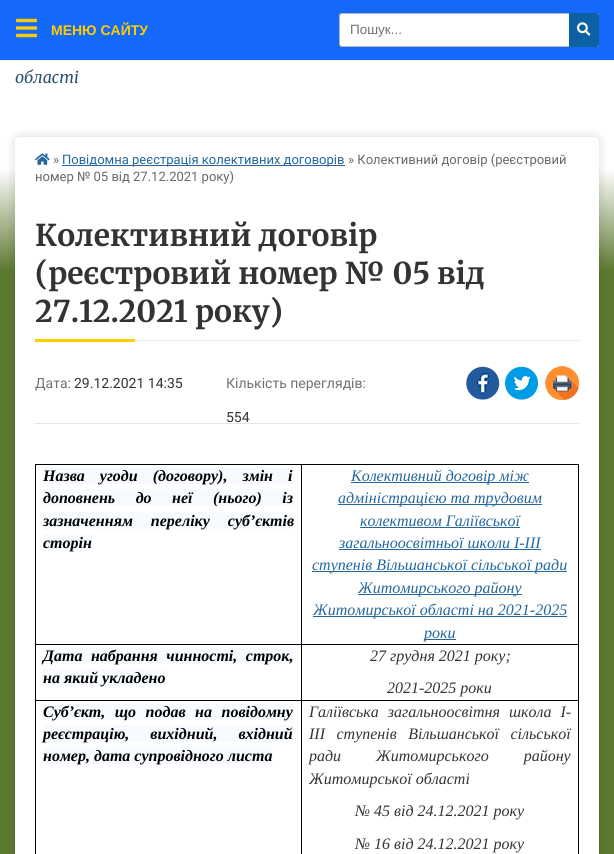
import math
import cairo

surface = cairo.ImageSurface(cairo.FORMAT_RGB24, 614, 854)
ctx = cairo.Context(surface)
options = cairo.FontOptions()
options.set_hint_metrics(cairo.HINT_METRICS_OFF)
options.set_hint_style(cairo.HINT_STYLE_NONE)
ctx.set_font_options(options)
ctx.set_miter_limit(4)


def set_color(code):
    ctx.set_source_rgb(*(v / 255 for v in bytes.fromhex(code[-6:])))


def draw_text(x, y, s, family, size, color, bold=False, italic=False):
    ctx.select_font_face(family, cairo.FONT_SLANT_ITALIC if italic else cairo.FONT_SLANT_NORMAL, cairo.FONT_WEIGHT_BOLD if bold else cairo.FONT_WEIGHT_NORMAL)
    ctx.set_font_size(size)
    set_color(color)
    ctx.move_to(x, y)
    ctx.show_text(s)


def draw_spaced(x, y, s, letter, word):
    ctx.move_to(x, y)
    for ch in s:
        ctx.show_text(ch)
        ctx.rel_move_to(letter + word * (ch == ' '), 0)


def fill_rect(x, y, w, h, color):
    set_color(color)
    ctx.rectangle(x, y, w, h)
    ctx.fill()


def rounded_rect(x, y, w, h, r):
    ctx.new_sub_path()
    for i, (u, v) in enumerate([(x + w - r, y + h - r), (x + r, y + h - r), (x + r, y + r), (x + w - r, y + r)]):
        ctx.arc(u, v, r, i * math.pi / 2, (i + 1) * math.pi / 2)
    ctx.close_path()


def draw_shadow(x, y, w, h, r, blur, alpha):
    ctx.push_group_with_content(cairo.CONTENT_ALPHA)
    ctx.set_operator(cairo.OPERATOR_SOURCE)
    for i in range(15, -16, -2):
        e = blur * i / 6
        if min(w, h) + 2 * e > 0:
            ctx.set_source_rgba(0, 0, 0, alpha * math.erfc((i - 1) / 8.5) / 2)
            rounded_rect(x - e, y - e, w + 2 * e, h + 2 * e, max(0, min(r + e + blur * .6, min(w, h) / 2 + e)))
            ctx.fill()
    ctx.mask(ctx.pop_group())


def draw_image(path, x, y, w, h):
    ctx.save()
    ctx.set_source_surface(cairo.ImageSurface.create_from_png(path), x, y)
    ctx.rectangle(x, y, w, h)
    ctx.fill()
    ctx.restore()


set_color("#ffffff")
ctx.paint()
gradient = cairo.LinearGradient(307, -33, 307, 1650)
gradient.add_color_stop_rgba(0.12, 1, 1, 1, 1)
gradient.add_color_stop_rgba(0.18, 0.365, 0.478, 0.192, 1)
ctx.set_source(gradient)
ctx.rectangle(0, 170, 614, 684)
ctx.fill()
set_color("#000000")
draw_shadow(15, 137, 584, 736, 4, 5, 0.15)
set_color("#ffffff")
rounded_rect(15, 137, 584, 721, 4)
ctx.fill()
fill_rect(0, 0, 614, 60, "#1468fa")
draw_image("assets/img1.png", 16, 18, 21, 20)
draw_text(51, 35, "МЕНЮ САЙТУ", "Liberation Sans", 14, "#ffcc00", bold=True)
draw_image("assets/img2.png", 35, 153, 15, 12)
draw_text(53, 164, "»", "Roboto", 13, "#696969")
fill_rect(62, 165, 283, 1, "#25669c")
draw_text(62, 164, "Повідомна реєстрація колективних договорів", "Roboto", 13, "#25669c")
draw_text(348, 164, "» Колективний договір (реєстровий", "Roboto", 13, "#696969")
draw_text(35, 181, "номер № 05 від 27.12.2021 року)", "Roboto", 13, "#696969")
fill_rect(135, 340, 444, 1, "#e5e5e5")
draw_text(35, 246, "Колективний договір", "Merriweather Light", 30, "#333333")
draw_text(35, 284, "(реєстровий номер № 05 від", "Merriweather Light", 30, "#333333")
draw_text(35, 322, "27.12.2021 року)", "Merriweather Light", 30, "#333333")
fill_rect(35, 339, 100, 3, "#ffcc00")
draw_text(35, 388, "Дата:", "Roboto", 14, "#727272")
draw_text(74, 388, "29.12.2021 14:35", "Roboto", 14, "#333333")
draw_text(226, 388, "Кількість переглядів:", "Roboto", 14, "#727272")
draw_text(226, 422, "554", "Roboto", 14, "#333333")
draw_image("assets/img3.png", 466, 366, 34, 34)
draw_image("assets/img4.png", 505, 366, 33, 34)
draw_image("assets/img5.png", 545, 366, 34, 34)
fill_rect(35, 423, 544, 1, "#e5e5e5")
fill_rect(35, 464, 544, 1, "#000000")
fill_rect(578, 464, 1, 390, "#000000")
fill_rect(35, 464, 1, 390, "#000000")
fill_rect(301, 700, 1, 154, "#000000")
fill_rect(301, 700, 278, 1, "#000000")
fill_rect(301, 644, 1, 57, "#000000")
fill_rect(301, 644, 278, 1, "#000000")
fill_rect(301, 464, 1, 181, "#000000")
fill_rect(35, 644, 267, 1, "#000000")
fill_rect(43, 467, 251, 17, "#f7fafe")
ctx.select_font_face("Liberation Serif", cairo.FONT_SLANT_ITALIC, cairo.FONT_WEIGHT_BOLD)
ctx.set_font_size(16)
set_color("#000000")
draw_spaced(43, 481, "Назва угоди (договору), змін і", 0, 11)
fill_rect(43, 489, 251, 17, "#f7fafe")
set_color("#000000")
draw_spaced(43, 503, "доповнень до неї (нього) із", 0, 16.5)
fill_rect(43, 512, 251, 17, "#f7fafe")
set_color("#000000")
draw_spaced(43, 526, "зазначенням переліку суб’єктів", 0, 14)
fill_rect(43, 534, 49, 17, "#f7fafe")
draw_text(43, 548, "сторін", "Liberation Serif", 16, "#000000", bold=True, italic=True)
fill_rect(351, 482, 178, 1, "#25669c")
draw_text(351, 481, "Колективний договір між", "Liberation Serif", 16, "#25669c", italic=True)
fill_rect(338, 504, 204, 1, "#25669c")
draw_text(338, 503, "адміністрацією та трудовим", "Liberation Serif", 16, "#25669c", italic=True)
draw_text(360, 526, "колективом Галіївської", "Liberation Serif", 16, "#25669c", italic=True)
fill_rect(360, 527, 160, 1, "#25669c")
draw_text(339, 548, "загальноосвітньої школи І-ІІІ", "Liberation Serif", 16, "#25669c", italic=True)
fill_rect(339, 549, 202, 1, "#25669c")
fill_rect(312, 571, 255, 1, "#25669c")
draw_text(312, 570, "ступенів Вільшанської сільської ради", "Liberation Serif", 16, "#25669c", italic=True)
fill_rect(358, 594, 164, 1, "#25669c")
draw_text(358, 593, "Житомирського району", "Liberation Serif", 16, "#25669c", italic=True)
fill_rect(313, 616, 254, 1, "#25669c")
draw_text(313, 615, "Житомирської області на 2021-2025", "Liberation Serif", 16, "#25669c", italic=True)
fill_rect(424, 639, 32, 1, "#25669c")
draw_text(424, 638, "роки", "Liberation Serif", 16, "#25669c", italic=True)
fill_rect(35, 700, 267, 1, "#000000")
fill_rect(43, 647, 251, 17, "#f7fafe")
ctx.select_font_face("Liberation Serif", cairo.FONT_SLANT_ITALIC, cairo.FONT_WEIGHT_BOLD)
set_color("#000000")
draw_spaced(43, 661, "Дата набрання чинності, строк,", 0, 4.5)
fill_rect(43, 669, 123, 17, "#f7fafe")
draw_text(43, 683, "на який укладено", "Liberation Serif", 16, "#000000", bold=True, italic=True)
draw_text(370, 661, "27 грудня 2021 року;", "Liberation Serif", 16, "#333333", italic=True)
draw_text(387, 693, "2021-2025 роки", "Liberation Serif", 16, "#333333", italic=True)
fill_rect(43, 703, 251, 17, "#f7fafe")
ctx.select_font_face("Liberation Serif", cairo.FONT_SLANT_ITALIC, cairo.FONT_WEIGHT_BOLD)
set_color("#000000")
draw_spaced(43, 717, "Суб’єкт, що подав на повідомну", 0, 5.5)
fill_rect(43, 725, 251, 17, "#f7fafe")
set_color("#000000")
draw_spaced(43, 739, "реєстрацію, вихідний, вхідний", 0, 17)
fill_rect(43, 747, 230, 17, "#f7fafe")
draw_text(43, 761, "номер, дата супровідного листа", "Liberation Serif", 16, "#000000", bold=True, italic=True)
ctx.select_font_face("Liberation Serif", cairo.FONT_SLANT_ITALIC)
set_color("#333333")
draw_spaced(309, 717, "Галіївська загальноосвітня школа І-", 0, 5)
draw_spaced(309, 739, "ІІІ ступенів Вільшанської сільської", 0, 7.5)
draw_spaced(309, 761, "ради Житомирського району", 0, 31)
draw_text(309, 784, "Житомирської області", "Liberation Serif", 16, "#333333", italic=True)
draw_text(355, 816, "№ 45 від 24.12.2021 року", "Liberation Serif", 16, "#333333", italic=True)
draw_text(355, 849, "№ 16 від 24.12.2021 року", "Liberation Serif", 16, "#333333", italic=True)
set_color("#ffffff")
rounded_rect(339.5, 13.5, 259, 33, 2.5)
ctx.fill_preserve()
set_color("#b7b7b7")
ctx.set_line_width(1)
ctx.stroke()
draw_text(350, 34, "Пошук...", "Liberation Sans", 13.5, "#727272")
set_color("#0d61a2")
ctx.new_path()
ctx.move_to(569, 13)
ctx.line_to(596, 13)
ctx.curve_to(597.5, 13, 599, 14.5, 599, 16)
ctx.line_to(599, 44)
ctx.curve_to(599, 45.5, 597.5, 47, 596, 47)
ctx.line_to(569, 47)
ctx.close_path()
ctx.fill()
draw_image("assets/img6.png", 577, 22, 14, 14)
draw_text(15, 83, "області", "Merriweather Light", 16, "#2c526e", italic=True)
surface.write_to_png("output.png")
